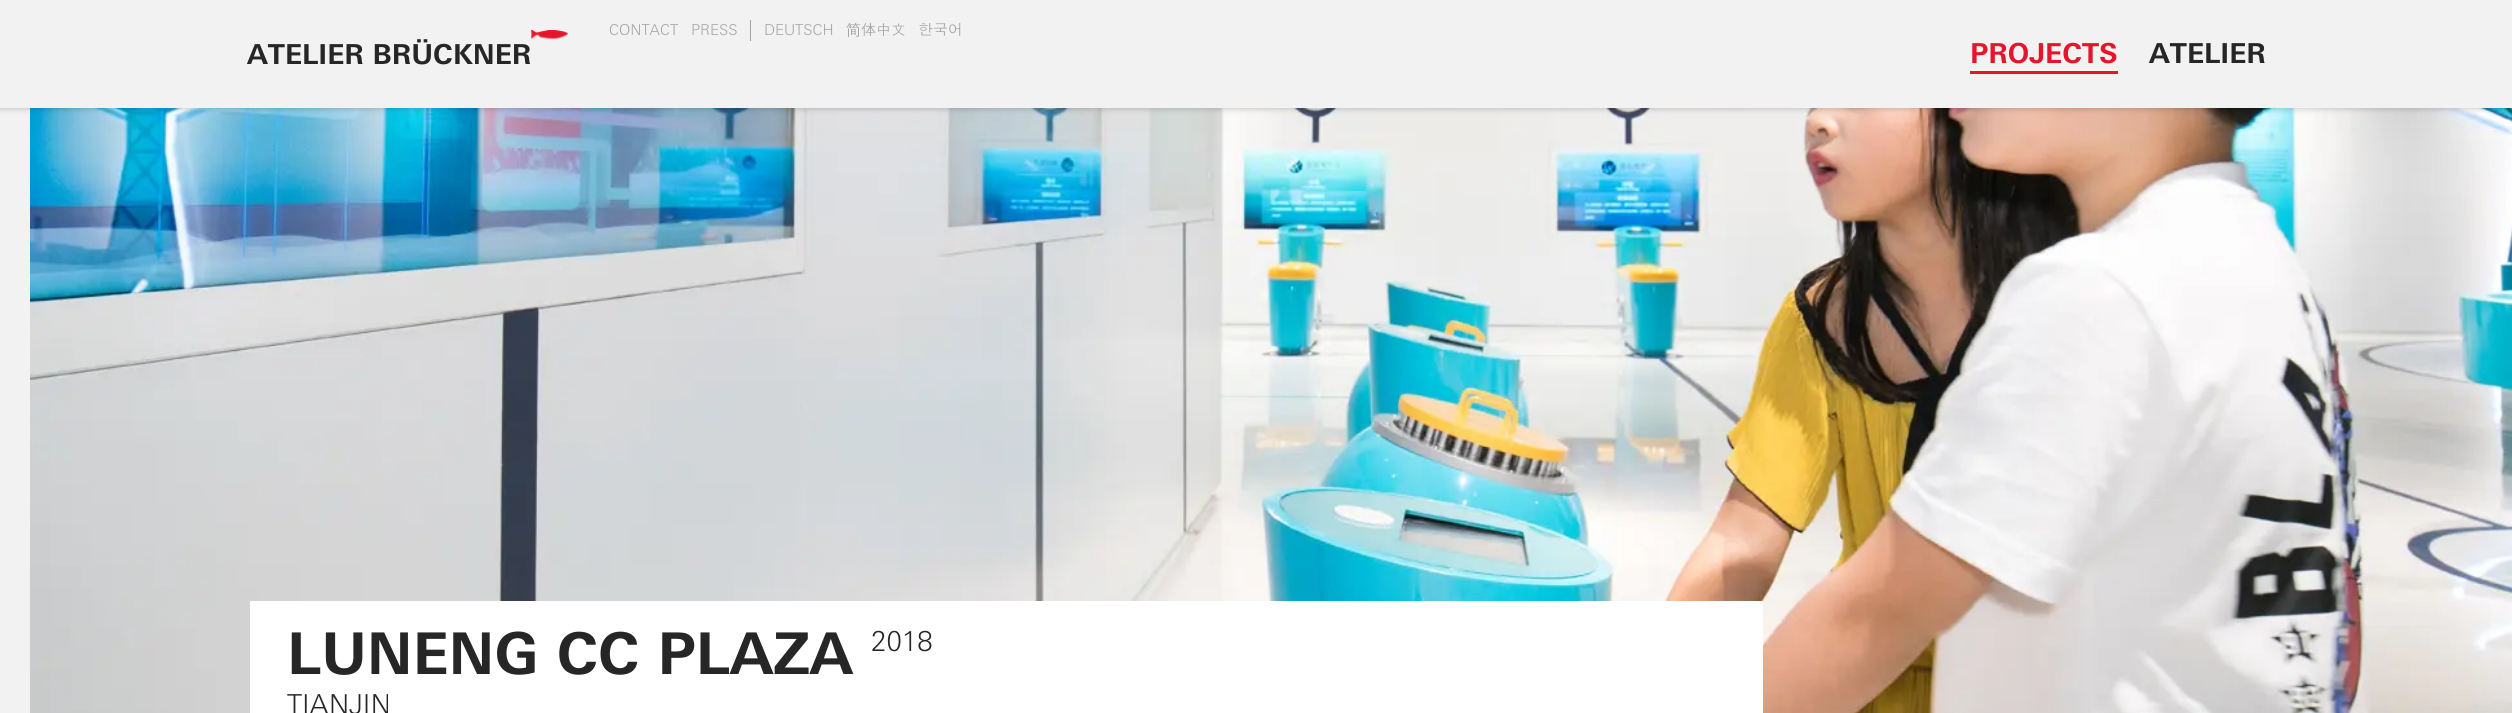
import math
import cairo

surface = cairo.ImageSurface(cairo.FORMAT_RGB24, 2512, 713)
ctx = cairo.Context(surface)
options = cairo.FontOptions()
options.set_hint_metrics(cairo.HINT_METRICS_OFF)
options.set_hint_style(cairo.HINT_STYLE_NONE)
ctx.set_font_options(options)
ctx.set_miter_limit(4)


def set_color(code):
    ctx.set_source_rgb(*(v / 255 for v in bytes.fromhex(code[-6:])))


def draw_text(x, y, s, family, size, color, bold=False, italic=False):
    ctx.select_font_face(family, cairo.FONT_SLANT_ITALIC if italic else cairo.FONT_SLANT_NORMAL, cairo.FONT_WEIGHT_BOLD if bold else cairo.FONT_WEIGHT_NORMAL)
    ctx.set_font_size(size)
    set_color(color)
    ctx.move_to(x, y)
    ctx.show_text(s)


def fill_rect(x, y, w, h, color):
    set_color(color)
    ctx.rectangle(x, y, w, h)
    ctx.fill()


def rounded_rect(x, y, w, h, r):
    ctx.new_sub_path()
    for i, (u, v) in enumerate([(x + w - r, y + h - r), (x + r, y + h - r), (x + r, y + r), (x + w - r, y + r)]):
        ctx.arc(u, v, r, i * math.pi / 2, (i + 1) * math.pi / 2)
    ctx.close_path()


def draw_shadow(x, y, w, h, r, blur, alpha):
    ctx.push_group_with_content(cairo.CONTENT_ALPHA)
    ctx.set_operator(cairo.OPERATOR_SOURCE)
    for i in range(15, -16, -2):
        e = blur * i / 6
        if min(w, h) + 2 * e > 0:
            ctx.set_source_rgba(0, 0, 0, alpha * math.erfc((i - 1) / 8.5) / 2)
            rounded_rect(x - e, y - e, w + 2 * e, h + 2 * e, max(0, min(r + e + blur * .6, min(w, h) / 2 + e)))
            ctx.fill()
    ctx.mask(ctx.pop_group())


def draw_image(path, x, y, w, h):
    ctx.save()
    ctx.set_source_surface(cairo.ImageSurface.create_from_png(path), x, y)
    ctx.rectangle(x, y, w, h)
    ctx.fill()
    ctx.restore()


set_color("#f2f2f2")
ctx.paint()
draw_image("assets/img2.png", 30, 108, 2482, 605)
set_color("#000000")
draw_shadow(0, 1, 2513, 108, 0, 3, 0.2)
fill_rect(0, 0, 2512, 108, "#f2f2f2")
draw_text(609, 35, "CONTACT", "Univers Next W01 Light", 15, "#a5a5a5")
draw_text(691, 35, "PRESS", "Univers Next W01 Light", 15, "#a5a5a5")
fill_rect(750, 20, 1, 21, "#a5a5a5")
draw_text(764, 35, "DEUTSCH", "Univers Next W01 Light", 15, "#a5a5a5")
draw_text(846, 35, "简", "WenQuanYi Zen Hei Medium", 15, "#a5a5a5")
draw_text(861, 35, "体中文", "Dotum", 15, "#a5a5a5")
draw_text(918, 35, "한국어", "Dotum", 15, "#a5a5a5")
draw_image("assets/img1.png", 531, 30, 38, 10)
draw_text(247, 64, "ATELIER BRÜCKNER", "Univers Next W01", 27.5, "#262626", bold=True)
fill_rect(1970, 71, 148, 3, "#e7152b")
draw_text(1970, 63, "PROJECTS", "Univers Next W01", 27.5, "#e7152b", bold=True)
draw_text(2149, 63, "ATELIER", "Univers Next W01", 27.5, "#262626", bold=True)
fill_rect(250, 601, 1513, 112, "#ffffff")
draw_text(287, 674, "LUNENG CC PLAZA", "Univers Next W01", 57.5, "#262626", bold=True)
draw_text(871, 651, "2018", "Univers Next W01 Light", 27.5, "#262626")
draw_text(287, 714, "TIANJIN", "Univers Next W01 Light", 27.5, "#262626")
surface.write_to_png("output.png")
